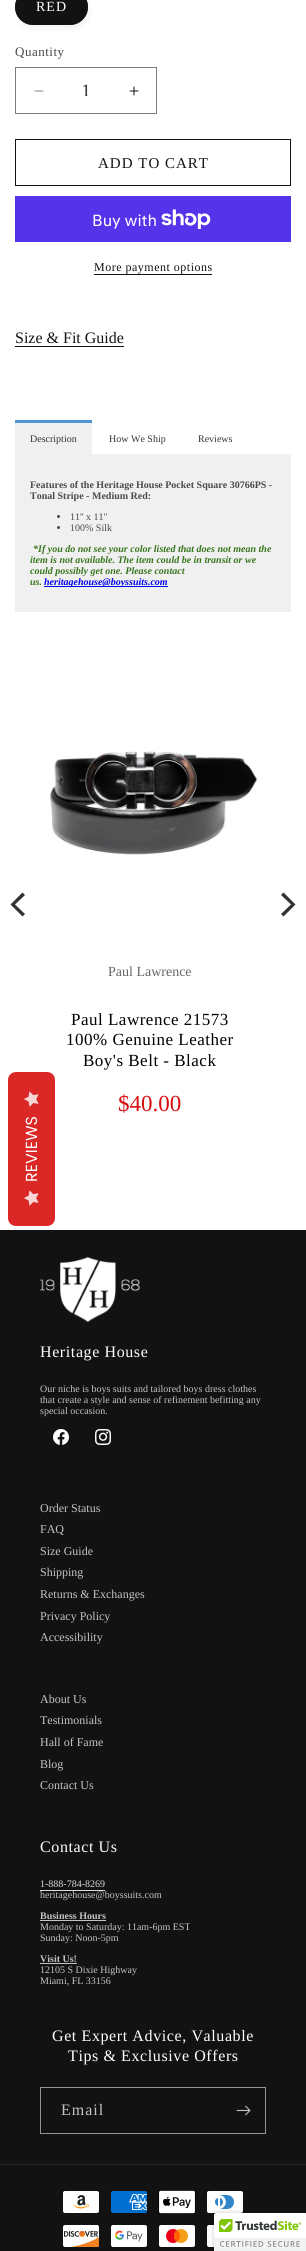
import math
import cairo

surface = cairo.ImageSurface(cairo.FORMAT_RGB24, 306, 2251)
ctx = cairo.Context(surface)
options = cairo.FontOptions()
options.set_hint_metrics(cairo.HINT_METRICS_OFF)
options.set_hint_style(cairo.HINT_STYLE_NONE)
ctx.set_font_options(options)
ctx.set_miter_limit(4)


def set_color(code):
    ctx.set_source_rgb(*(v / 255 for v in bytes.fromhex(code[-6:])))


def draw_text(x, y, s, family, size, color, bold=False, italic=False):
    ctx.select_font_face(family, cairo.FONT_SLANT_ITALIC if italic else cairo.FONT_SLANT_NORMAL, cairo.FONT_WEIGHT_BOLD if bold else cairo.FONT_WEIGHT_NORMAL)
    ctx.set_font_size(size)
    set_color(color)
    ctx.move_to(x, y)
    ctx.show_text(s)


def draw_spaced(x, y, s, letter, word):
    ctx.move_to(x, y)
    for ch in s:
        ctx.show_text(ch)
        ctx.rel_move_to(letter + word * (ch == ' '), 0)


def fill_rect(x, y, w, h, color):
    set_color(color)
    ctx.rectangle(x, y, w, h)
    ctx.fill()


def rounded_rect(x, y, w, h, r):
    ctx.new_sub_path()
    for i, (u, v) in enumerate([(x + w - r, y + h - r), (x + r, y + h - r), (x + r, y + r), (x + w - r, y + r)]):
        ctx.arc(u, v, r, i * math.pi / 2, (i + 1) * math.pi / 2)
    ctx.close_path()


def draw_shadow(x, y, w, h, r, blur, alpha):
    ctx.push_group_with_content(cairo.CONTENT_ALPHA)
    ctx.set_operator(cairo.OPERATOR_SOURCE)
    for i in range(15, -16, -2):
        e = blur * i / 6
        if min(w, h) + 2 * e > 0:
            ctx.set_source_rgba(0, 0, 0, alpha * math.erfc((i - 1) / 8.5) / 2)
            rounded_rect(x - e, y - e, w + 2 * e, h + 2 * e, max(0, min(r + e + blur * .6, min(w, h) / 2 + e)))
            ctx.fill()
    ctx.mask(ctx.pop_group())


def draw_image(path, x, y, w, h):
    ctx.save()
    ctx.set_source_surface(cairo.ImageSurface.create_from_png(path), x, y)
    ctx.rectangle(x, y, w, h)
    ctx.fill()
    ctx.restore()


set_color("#ffffff")
ctx.paint()
set_color("#121212")
draw_shadow(17, -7, 73, 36, 18, 2.5, 0.05)
set_color("#121212")
rounded_rect(15, -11, 73, 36, 18)
ctx.fill()
rounded_rect(15.5, -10.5, 72, 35, 17.5)
ctx.set_source_rgba(0.071, 0.071, 0.071, 0.55)
ctx.set_line_width(1)
ctx.stroke()
ctx.select_font_face("Liberation Serif")
ctx.set_font_size(14)
set_color("#ffffff")
draw_spaced(36, 11, "RED", 1, 0)
ctx.set_font_size(13)
set_color("#4a4a4a")
draw_spaced(15, 56, "Quantity", 0.5, 0)
draw_image("assets/img1.png", 34, 90, 10, 2)
draw_image("assets/img2.png", 129, 86, 10, 10)
ctx.rectangle(15.5, 67.5, 141, 46)
set_color("#7d7d7d")
ctx.stroke()
draw_text(83, 96, "1", "Asul", 16, "#333333")
ctx.rectangle(15.5, 139.5, 275, 46)
set_color("#121212")
ctx.stroke()
ctx.select_font_face("Liberation Serif")
ctx.set_font_size(15)
draw_spaced(98, 168, "ADD TO CART", 1, 0)
fill_rect(15, 196, 276, 46, "#5433eb")
draw_text(92, 226, "Buy with", "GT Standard", 16, "#ffffff")
draw_image("assets/img3.png", 161, 209, 50, 20)
ctx.select_font_face("Liberation Serif")
ctx.set_font_size(12)
set_color("#121212")
draw_spaced(94, 271, "More payment options", 0.5, 0)
fill_rect(94, 274, 118, 1, "#121212")
draw_text(15, 343, "Size & Fit Guide", "Liberation Serif", 16, "#121212")
fill_rect(15, 346, 109, 1, "#121212")
fill_rect(15, 423, 77, 31, "#f0f0f0")
fill_rect(15, 420, 77, 3, "#4d95d5")
draw_text(30, 442, "Description", "Liberation Serif", 10, "#333333")
draw_text(109, 442, "How We Ship", "Liberation Serif", 10, "#333333")
draw_text(198, 442, "Reviews", "Liberation Serif", 10, "#333333")
fill_rect(15, 454, 276, 158, "#f0f0f0")
draw_text(30, 488, "Features of the Heritage House Pocket Square 30766PS -", "Liberation Serif", 10, "#4a4a4a", bold=True)
draw_text(30, 499, "Tonal Stripe - Medium Red:", "Liberation Serif", 10, "#4a4a4a", bold=True)
ctx.new_path()
ctx.arc(58.5, 516.5, 1.5, 0, 2 * math.pi)
ctx.fill()
draw_text(70, 520, "11'' x 11''", "Liberation Serif", 10, "#4a4a4a")
ctx.new_path()
ctx.arc(58.5, 527.5, 1.5, 0, 2 * math.pi)
ctx.fill()
draw_text(70, 531, "100% Silk", "Liberation Serif", 10, "#4a4a4a")
draw_text(33, 552, "*If you do not see your color listed that does not mean the", "Liberation Serif", 10, "#38761d", bold=True, italic=True)
draw_text(30, 563, "item is not available. The item could be in transit or we", "Liberation Serif", 10, "#38761d", bold=True, italic=True)
draw_text(30, 574, "could possibly get one. Please contact", "Liberation Serif", 10, "#38761d", bold=True, italic=True)
draw_text(30, 585, "us.", "Liberation Serif", 10, "#38761d", bold=True, italic=True)
fill_rect(44, 586, 124, 1, "#0000ee")
draw_text(44, 585, "heritagehouse@boyssuits.com", "Liberation Serif", 10, "#0000ee", bold=True, italic=True)
set_color("#333333")
ctx.new_path()
ctx.move_to(10.5, 904.5)
ctx.line_to(22.5, 916.5)
ctx.line_to(25, 914)
ctx.line_to(15, 904.5)
ctx.line_to(25, 895)
ctx.line_to(22.5, 892.5)
ctx.close_path()
ctx.fill()
ctx.new_path()
ctx.move_to(295.5, 904.5)
ctx.line_to(283.5, 892.5)
ctx.line_to(281, 895)
ctx.line_to(291, 904.5)
ctx.line_to(281, 914)
ctx.line_to(283.5, 916.5)
ctx.close_path()
ctx.fill()
draw_image("assets/img4.png", 50, 751, 208, 104)
draw_text(108, 976, "Paul Lawrence", "Liberation Serif", 14, "#666666")
ctx.set_font_size(17)
set_color("#000000")
draw_spaced(71, 1025, "Paul Lawrence 21573", 0.5, 0)
draw_spaced(66, 1045, "100% Genuine Leather", 0.5, 0)
draw_spaced(83, 1066, "Boy's Belt - Black", 0.5, 0)
draw_text(118, 1111, "$40.00", "Liberation Serif", 23, "#d70c0c")
set_color("#dc2727")
ctx.new_path()
ctx.move_to(8, 1218)
ctx.line_to(8, 1080)
ctx.curve_to(8, 1075, 12, 1072, 16, 1072)
ctx.line_to(47, 1072)
ctx.curve_to(51, 1072, 55, 1075, 55, 1080)
ctx.line_to(55, 1218)
ctx.curve_to(55, 1223, 51, 1226, 47, 1226)
ctx.line_to(16, 1226)
ctx.curve_to(12, 1226, 8, 1223, 8, 1218)
ctx.close_path()
ctx.fill()
draw_image("assets/img5.png", 24, 1091, 15, 16)
ctx.save()
ctx.translate(37, 1182)
ctx.rotate(-90 * math.pi / 180)
draw_text(0, 0, "REVIEWS", "Poppins", 16, "#ffffff")
ctx.restore()
draw_image("assets/img5.png", 24, 1190, 15, 16)
fill_rect(0, 1230, 306, 1021, "#121212")
draw_image("assets/img6.png", 40, 1257, 100, 65)
ctx.select_font_face("Liberation Serif")
ctx.set_font_size(16)
set_color("#ffffff")
draw_spaced(40, 1357, "Heritage House", 0.6, 0)
draw_text(40, 1392, "Our niche is boys suits and tailored boys dress clothes", "Liberation Serif", 10, "#c4c4c4")
draw_text(40, 1403, "that create a style and sense of refinement befitting any", "Liberation Serif", 10, "#c4c4c4")
draw_text(40, 1414, "special occasion.", "Liberation Serif", 10, "#c4c4c4")
draw_image("assets/img7.png", 53, 1429, 16, 16)
draw_image("assets/img8.png", 95, 1429, 16, 16)
draw_text(40, 1512, "Order Status", "Liberation Serif", 12, "#c4c4c4")
draw_text(40, 1533, "FAQ", "Liberation Serif", 12, "#c4c4c4")
draw_text(40, 1555, "Size Guide", "Liberation Serif", 12, "#c4c4c4")
draw_text(40, 1576, "Shipping", "Liberation Serif", 12, "#c4c4c4")
draw_text(40, 1598, "Returns & Exchanges", "Liberation Serif", 12, "#c4c4c4")
draw_text(40, 1620, "Privacy Policy", "Liberation Serif", 12, "#c4c4c4")
draw_text(40, 1641, "Accessibility", "Liberation Serif", 12, "#c4c4c4")
draw_text(40, 1703, "About Us", "Liberation Serif", 12, "#c4c4c4")
draw_text(40, 1724, "Testimonials", "Liberation Serif", 12, "#c4c4c4")
draw_text(40, 1746, "Hall of Fame", "Liberation Serif", 12, "#c4c4c4")
draw_text(40, 1768, "Blog", "Liberation Serif", 12, "#c4c4c4")
draw_text(40, 1789, "Contact Us", "Liberation Serif", 12, "#c4c4c4")
ctx.set_font_size(16)
set_color("#ffffff")
draw_spaced(40, 1852, "Contact Us", 0.6, 0)
draw_text(40, 1887, "1-888-784-8269", "Liberation Serif", 10, "#dbdbdb")
fill_rect(40, 1890, 65, 1, "#dbdbdb")
draw_text(40, 1898, "heritagehouse@boyssuits.com", "Liberation Serif", 10, "#c4c4c4")
draw_text(40, 1919, "Business Hours", "Liberation Serif", 10, "#c4c4c4", bold=True)
fill_rect(40, 1920, 66, 1, "#c4c4c4")
draw_text(40, 1930, "Monday to Saturday: 11am-6pm EST", "Liberation Serif", 10, "#c4c4c4")
draw_text(40, 1941, "Sunday: Noon-5pm", "Liberation Serif", 10, "#c4c4c4")
draw_text(40, 1962, "Visit Us!", "Liberation Serif", 10, "#c4c4c4", bold=True)
fill_rect(40, 1963, 37, 1, "#c4c4c4")
draw_text(40, 1973, "12105 S Dixie Highway", "Liberation Serif", 10, "#c4c4c4")
draw_text(40, 1984, "Miami, FL 33156", "Liberation Serif", 10, "#c4c4c4")
ctx.set_font_size(16)
set_color("#ffffff")
draw_spaced(52, 2041, "Get Expert Advice, Valuable", 0.6, 0)
draw_spaced(68, 2061, "Tips & Exclusive Offers", 0.6, 0)
ctx.rectangle(40.5, 2087.5, 225, 46)
set_color("#949494")
ctx.stroke()
set_color("#c4c4c4")
draw_spaced(61, 2115, "Email", 1, 0)
draw_image("assets/img9.png", 236, 2105, 15, 11)
fill_rect(0, 2164, 306, 1, "#252525")
draw_image("assets/img10.png", 63, 2191, 36, 22)
draw_image("assets/img11.png", 111, 2191, 36, 22)
draw_image("assets/img12.png", 158, 2190, 38, 24)
draw_image("assets/img13.png", 207, 2191, 36, 22)
draw_image("assets/img14.png", 63, 2225, 36, 22)
draw_image("assets/img15.png", 111, 2225, 36, 22)
draw_image("assets/img16.png", 159, 2225, 36, 22)
draw_image("assets/img17.png", 207, 2225, 7, 22)
set_color("#000000")
draw_shadow(214, 2213, 92, 38, 2, 2.5, 0.2)
set_color("#ffffff")
ctx.new_path()
ctx.move_to(216, 2213)
ctx.line_to(306, 2213)
ctx.line_to(306, 2251)
ctx.line_to(214, 2251)
ctx.line_to(214, 2215)
ctx.curve_to(214, 2214, 215, 2213, 216, 2213)
ctx.close_path()
ctx.fill()
draw_image("assets/img18.png", 214, 2213, 92, 38)
surface.write_to_png("output.png")
